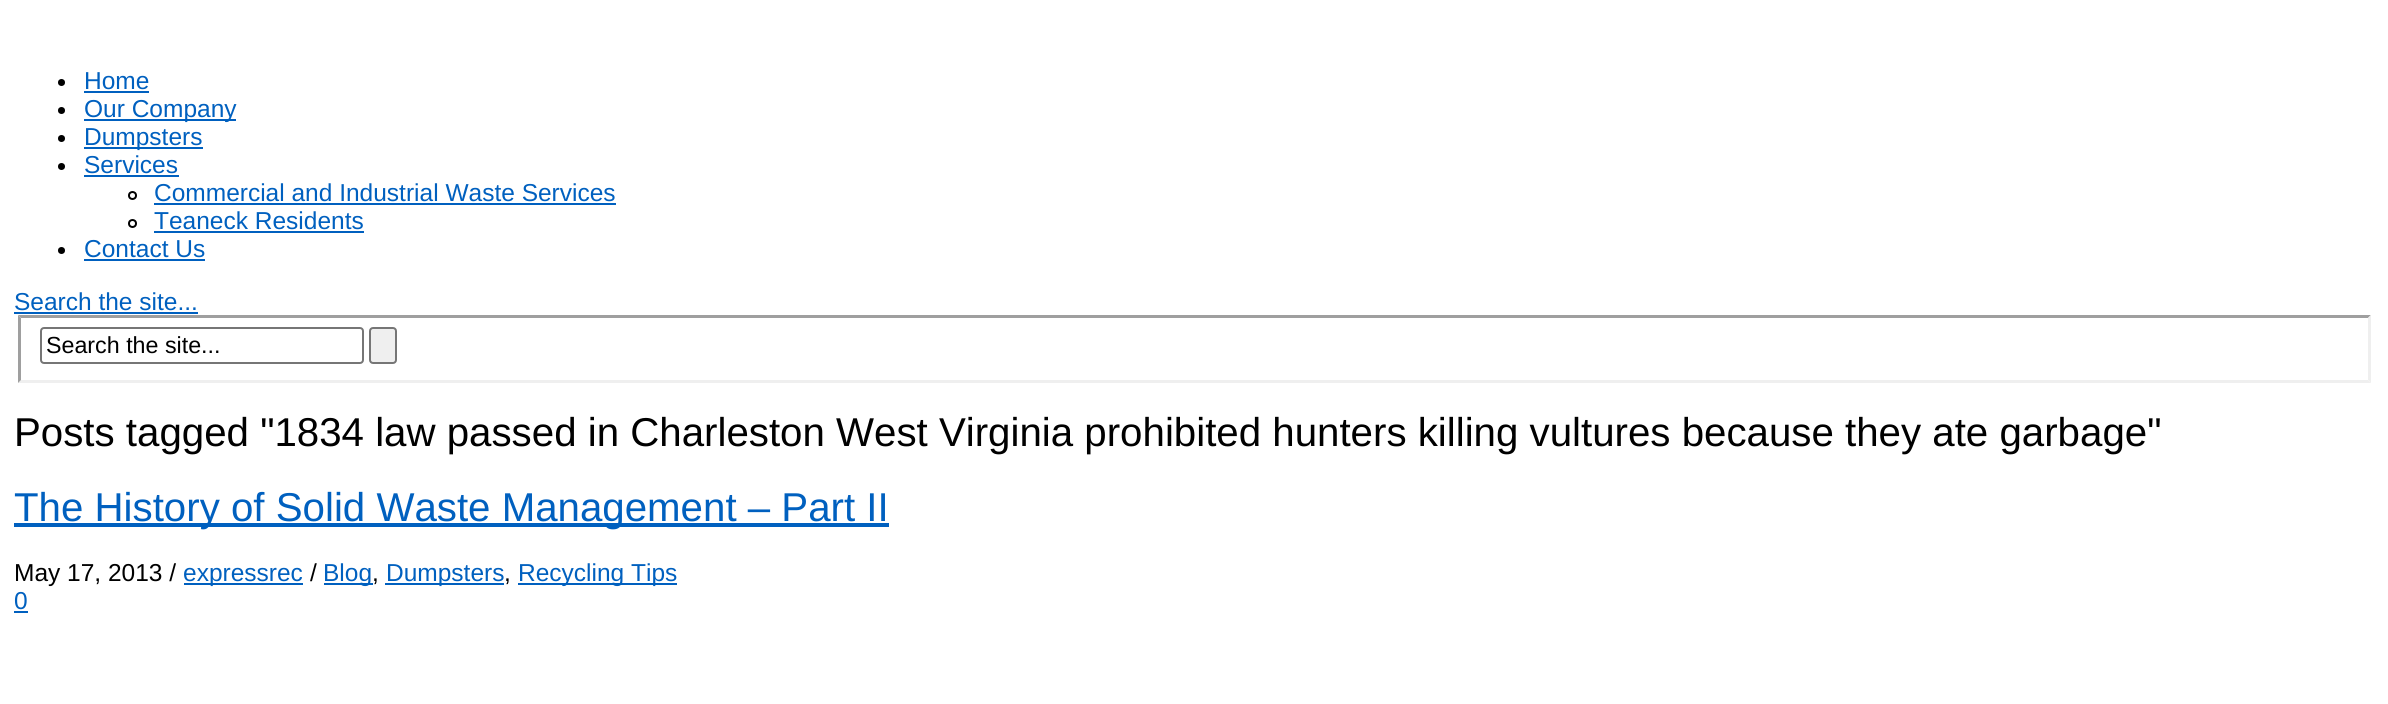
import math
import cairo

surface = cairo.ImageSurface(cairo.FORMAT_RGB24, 2388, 704)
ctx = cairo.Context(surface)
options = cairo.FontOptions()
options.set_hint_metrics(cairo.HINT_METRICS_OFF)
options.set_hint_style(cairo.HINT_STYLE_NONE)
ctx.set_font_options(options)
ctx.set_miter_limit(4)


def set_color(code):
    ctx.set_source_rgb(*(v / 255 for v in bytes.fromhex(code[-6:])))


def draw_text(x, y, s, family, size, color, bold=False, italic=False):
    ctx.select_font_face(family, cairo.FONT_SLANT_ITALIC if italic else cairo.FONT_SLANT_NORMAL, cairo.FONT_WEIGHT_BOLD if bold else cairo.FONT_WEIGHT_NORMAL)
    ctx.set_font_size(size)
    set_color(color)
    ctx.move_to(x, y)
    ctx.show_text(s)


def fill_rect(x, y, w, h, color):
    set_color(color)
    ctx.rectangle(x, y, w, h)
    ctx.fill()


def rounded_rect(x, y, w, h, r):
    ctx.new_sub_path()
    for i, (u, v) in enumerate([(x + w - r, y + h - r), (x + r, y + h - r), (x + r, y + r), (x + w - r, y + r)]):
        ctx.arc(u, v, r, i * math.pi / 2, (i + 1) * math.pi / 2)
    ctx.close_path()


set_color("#ffffff")
ctx.paint()
set_color("#000000")
ctx.arc(61.5, 82.5, 3.5, 0, 2 * math.pi)
ctx.fill()
draw_text(84, 89, "Home", "Liberation Sans", 24.5, "#0060bf")
fill_rect(84, 91, 65, 2, "#0060bf")
set_color("#000000")
ctx.new_path()
ctx.arc(61.5, 110.5, 3.5, 0, 2 * math.pi)
ctx.fill()
fill_rect(84, 119, 152, 2, "#0060bf")
draw_text(84, 117, "Our Company", "Liberation Sans", 24.5, "#0060bf")
set_color("#000000")
ctx.new_path()
ctx.arc(61.5, 138.5, 3.5, 0, 2 * math.pi)
ctx.fill()
fill_rect(84, 147, 119, 2, "#0060bf")
draw_text(84, 145, "Dumpsters", "Liberation Sans", 24.5, "#0060bf")
set_color("#000000")
ctx.new_path()
ctx.arc(61.5, 166.5, 3.5, 0, 2 * math.pi)
ctx.fill()
draw_text(84, 173, "Services", "Liberation Sans", 24.5, "#0060bf")
fill_rect(84, 175, 95, 2, "#0060bf")
ctx.new_path()
ctx.arc(132.5, 195.5, 3.5, 0, 2 * math.pi)
set_color("#000000")
ctx.stroke()
draw_text(154, 201, "Commercial and Industrial Waste Services", "Liberation Sans", 24.5, "#0060bf")
fill_rect(154, 203, 462, 2, "#0060bf")
ctx.new_path()
ctx.arc(132.5, 223.5, 3.5, 0, 2 * math.pi)
set_color("#000000")
ctx.stroke()
draw_text(154, 229, "Teaneck Residents", "Liberation Sans", 24.5, "#0060bf")
fill_rect(154, 231, 210, 2, "#0060bf")
set_color("#000000")
ctx.new_path()
ctx.arc(61.5, 250.5, 3.5, 0, 2 * math.pi)
ctx.fill()
draw_text(84, 257, "Contact Us", "Liberation Sans", 24.5, "#0060bf")
fill_rect(84, 259, 121, 2, "#0060bf")
draw_text(14, 310, "Search the site...", "Liberation Sans", 24.5, "#0060bf")
fill_rect(14, 312, 184, 2, "#0060bf")
set_color("#9f9f9f")
ctx.new_path()
ctx.move_to(18, 315)
ctx.line_to(2371, 315)
ctx.line_to(2368, 318)
ctx.line_to(21, 318)
ctx.close_path()
ctx.fill()
set_color("#efefef")
ctx.new_path()
ctx.move_to(2371, 315)
ctx.line_to(2371, 383)
ctx.line_to(2368, 380)
ctx.line_to(2368, 318)
ctx.close_path()
ctx.fill()
ctx.new_path()
ctx.move_to(2371, 383)
ctx.line_to(18, 383)
ctx.line_to(21, 380)
ctx.line_to(2368, 380)
ctx.close_path()
ctx.fill()
set_color("#9f9f9f")
ctx.new_path()
ctx.move_to(18, 383)
ctx.line_to(18, 315)
ctx.line_to(21, 318)
ctx.line_to(21, 380)
ctx.close_path()
ctx.fill()
rounded_rect(41, 328, 322, 35, 3)
set_color("#767676")
ctx.stroke()
draw_text(46, 353, "Search the site...", "Liberation Sans", 23.25, "#000000")
set_color("#efefef")
rounded_rect(370, 328, 26, 35, 3)
ctx.fill_preserve()
set_color("#767676")
ctx.stroke()
draw_text(14, 446, "Posts tagged \"1834 law passed in Charleston West Virginia prohibited hunters killing vultures because they ate garbage\"", "Liberation Sans", 40.25, "#000000")
fill_rect(14, 523, 875, 4, "#0060bf")
draw_text(14, 521, "The History of Solid Waste Management – Part II", "Liberation Sans", 40.25, "#0060bf")
draw_text(14, 581, "May 17, 2013 /", "Liberation Sans", 24.5, "#000000")
fill_rect(184, 583, 119, 2, "#0060bf")
draw_text(183, 581, "expressrec", "Liberation Sans", 24.5, "#0060bf")
draw_text(310, 581, "/", "Liberation Sans", 24.5, "#000000")
fill_rect(324, 583, 49, 2, "#0060bf")
draw_text(323, 581, "Blog", "Liberation Sans", 24.5, "#0060bf")
draw_text(372, 581, ",", "Liberation Sans", 24.5, "#000000")
fill_rect(385, 583, 119, 2, "#0060bf")
draw_text(386, 581, "Dumpsters", "Liberation Sans", 24.5, "#0060bf")
draw_text(504, 581, ",", "Liberation Sans", 24.5, "#000000")
fill_rect(518, 583, 159, 2, "#0060bf")
draw_text(518, 581, "Recycling Tips", "Liberation Sans", 24.5, "#0060bf")
draw_text(14, 609, "0", "Liberation Sans", 24.5, "#0060bf")
fill_rect(14, 611, 14, 2, "#0060bf")
surface.write_to_png("output.png")
